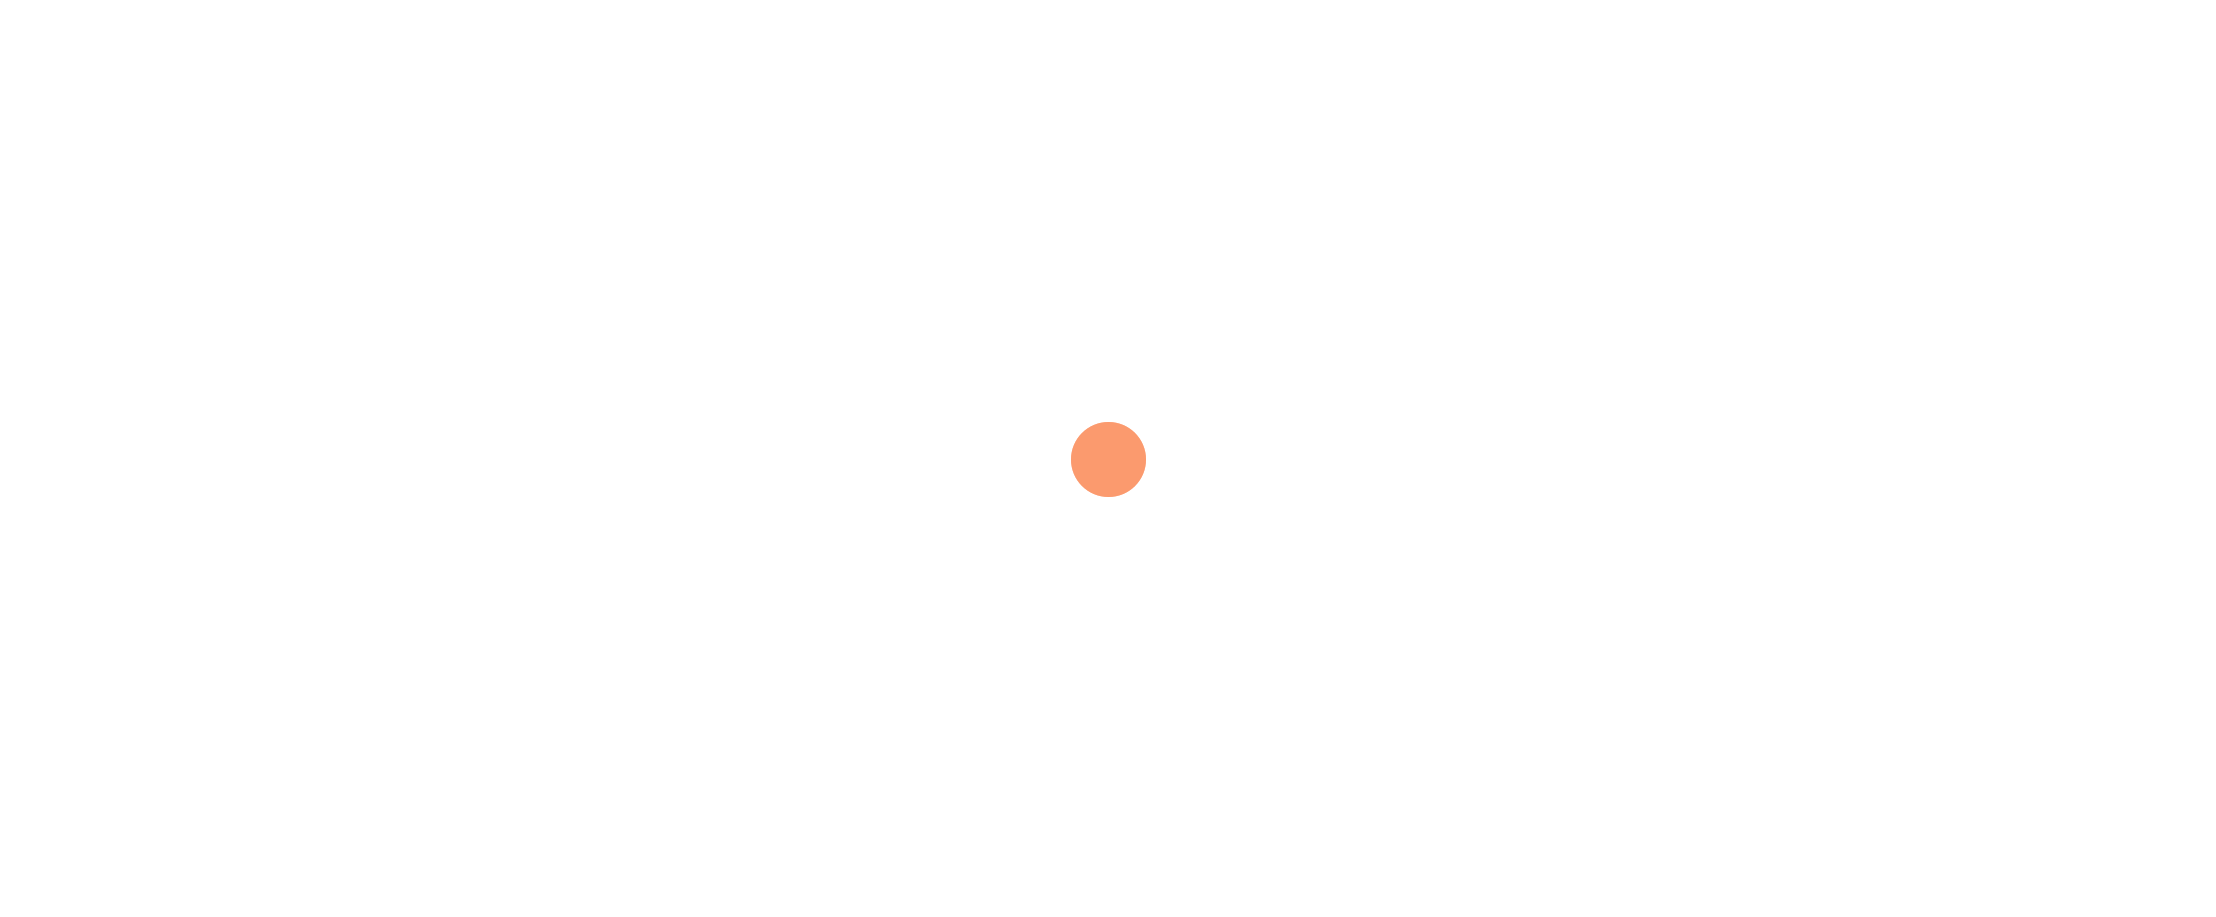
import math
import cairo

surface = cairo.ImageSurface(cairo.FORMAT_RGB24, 2216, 917)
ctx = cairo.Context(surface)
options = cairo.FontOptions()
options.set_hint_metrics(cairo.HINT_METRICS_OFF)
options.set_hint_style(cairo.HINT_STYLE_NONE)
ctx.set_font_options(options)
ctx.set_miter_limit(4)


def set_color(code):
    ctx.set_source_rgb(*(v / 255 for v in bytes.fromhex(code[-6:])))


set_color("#ffffff")
ctx.paint()
set_color("#ff9566")
ctx.arc(1108.5, 459.5, 37.5, 0, 2 * math.pi)
ctx.fill()
ctx.set_source_rgba(0.973, 0.612, 0.455, 0.6)
ctx.arc(1108.5, 459.5, 37.5, 0, 2 * math.pi)
ctx.fill()
surface.write_to_png("output.png")
